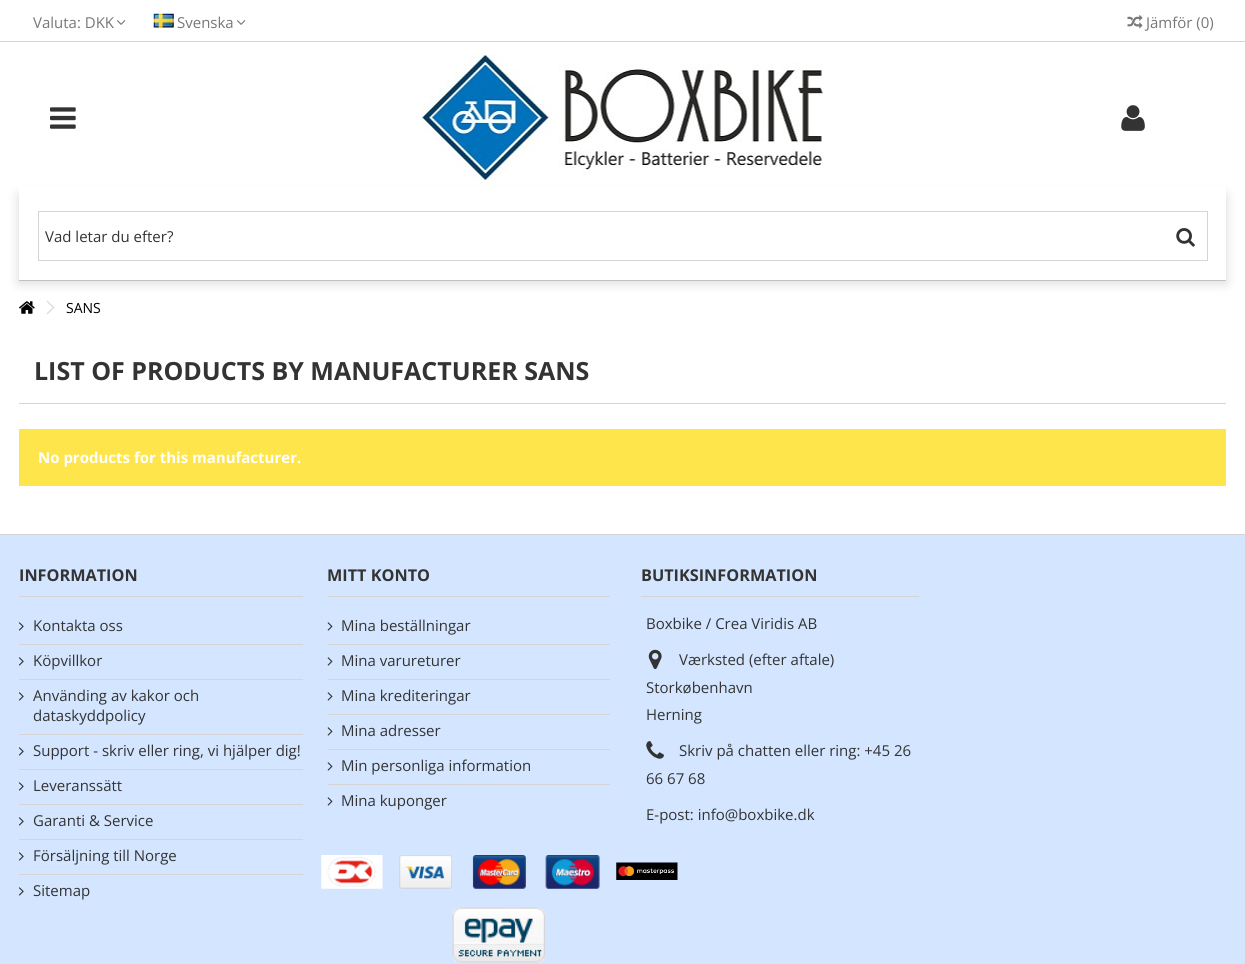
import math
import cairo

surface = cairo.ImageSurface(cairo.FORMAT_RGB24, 1245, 964)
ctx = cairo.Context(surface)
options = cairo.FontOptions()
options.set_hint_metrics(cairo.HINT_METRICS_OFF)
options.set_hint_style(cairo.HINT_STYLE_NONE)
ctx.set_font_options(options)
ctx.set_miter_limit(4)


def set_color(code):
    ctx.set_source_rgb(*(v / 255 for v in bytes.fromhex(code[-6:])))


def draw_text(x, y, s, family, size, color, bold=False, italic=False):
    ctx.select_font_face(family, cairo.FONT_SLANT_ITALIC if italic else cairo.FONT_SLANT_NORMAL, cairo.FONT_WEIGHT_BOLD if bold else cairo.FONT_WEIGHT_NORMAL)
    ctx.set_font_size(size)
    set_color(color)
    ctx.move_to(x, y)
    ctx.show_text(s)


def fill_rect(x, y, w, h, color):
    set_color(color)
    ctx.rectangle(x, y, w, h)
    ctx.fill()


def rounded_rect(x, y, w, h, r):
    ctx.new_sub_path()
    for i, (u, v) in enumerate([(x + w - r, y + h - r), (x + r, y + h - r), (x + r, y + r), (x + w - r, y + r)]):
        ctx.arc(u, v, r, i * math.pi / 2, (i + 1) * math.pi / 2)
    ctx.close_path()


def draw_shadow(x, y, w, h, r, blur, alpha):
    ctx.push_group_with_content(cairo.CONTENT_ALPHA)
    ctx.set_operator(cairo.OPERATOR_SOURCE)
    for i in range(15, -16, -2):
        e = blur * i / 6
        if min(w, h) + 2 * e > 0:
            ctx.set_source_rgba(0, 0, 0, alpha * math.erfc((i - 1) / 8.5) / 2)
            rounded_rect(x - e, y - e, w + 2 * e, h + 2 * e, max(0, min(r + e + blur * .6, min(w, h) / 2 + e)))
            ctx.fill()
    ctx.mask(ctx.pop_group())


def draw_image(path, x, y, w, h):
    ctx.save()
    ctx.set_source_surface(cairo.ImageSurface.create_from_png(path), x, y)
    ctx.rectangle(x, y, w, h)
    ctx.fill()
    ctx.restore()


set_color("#ffffff")
ctx.paint()
fill_rect(0, 41, 1245, 1, "#d6d4d4")
draw_text(33, 28, "Valuta: DKK", "Open Sans", 15, "#777777")
draw_image("assets/img1.png", 117, 20, 9, 5)
draw_image("assets/img2.png", 153, 13, 21, 15)
draw_text(177, 28, "Svenska", "Open Sans", 15, "#777777")
draw_image("assets/img1.png", 237, 20, 9, 5)
draw_image("assets/img3.png", 1127, 15, 16, 14)
draw_text(1146, 28, "Jämför (0)", "Open Sans", 15, "#777777")
fill_rect(19, 280, 1207, 1, "#d6d4d4")
draw_image("assets/img8.png", 19, 301, 16, 13)
set_color("#dddddd")
ctx.new_path()
ctx.move_to(47.5, 300.5)
ctx.line_to(54.5, 307.5)
ctx.line_to(53.5, 308.5)
ctx.line_to(46.5, 301.5)
ctx.close_path()
ctx.fill()
ctx.save()
ctx.set_fill_rule(cairo.FILL_RULE_EVEN_ODD)
ctx.new_path()
ctx.move_to(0, 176)
ctx.line_to(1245, 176)
ctx.line_to(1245, 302)
ctx.line_to(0, 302)
ctx.close_path()
ctx.move_to(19, 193)
ctx.line_to(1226, 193)
ctx.line_to(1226, 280)
ctx.line_to(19, 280)
ctx.close_path()
ctx.clip()
set_color("#000000")
draw_shadow(19, 195, 1207, 88, 0, 6, 0.15)
ctx.restore()
fill_rect(19, 186, 1207, 7, "#ffffff")
draw_image("assets/img4.png", 50, 107, 26, 22)
draw_image("assets/img5.png", 422, 55, 401, 125)
draw_image("assets/img6.png", 1121, 105, 24, 26)
ctx.rectangle(38.5, 211.5, 1169, 49)
set_color("#d6d4d4")
ctx.set_line_width(1)
ctx.stroke()
draw_text(45, 242, "Vad letar du efter?", "Open Sans", 15, "#333333")
draw_image("assets/img7.png", 1176, 228, 19, 19)
set_color("#dddddd")
ctx.new_path()
ctx.move_to(53.5, 306.5)
ctx.line_to(54.5, 307.5)
ctx.line_to(47.5, 314.5)
ctx.line_to(46.5, 313.5)
ctx.close_path()
ctx.fill()
draw_text(66, 313, "SANS", "Open Sans", 14, "#000000")
fill_rect(19, 403, 1207, 1, "#d6d4d4")
draw_text(34, 380, "LIST OF PRODUCTS BY MANUFACTURER SANS", "Open Sans", 25, "#333333", bold=True)
fill_rect(19, 429, 1207, 57, "#ffe54c")
draw_text(38, 463, "No products for this manufacturer.", "Open Sans", 15, "#ffffff", bold=True)
fill_rect(0, 535, 1245, 429, "#d4e6ff")
fill_rect(0, 534, 1245, 1, "#d6d4d4")
fill_rect(19, 596, 284, 1, "#d6d4d4")
draw_text(19, 581, "INFORMATION", "Open Sans", 16.25, "#333333", bold=True)
draw_image("assets/img9.png", 18, 622, 6, 9)
draw_text(33, 631, "Kontakta oss", "Open Sans", 15, "#333333")
fill_rect(19, 644, 284, 1, "#d6d4d4")
draw_image("assets/img9.png", 18, 657, 6, 9)
draw_text(33, 666, "Köpvillkor", "Open Sans", 15, "#333333")
fill_rect(19, 679, 284, 1, "#d6d4d4")
draw_image("assets/img9.png", 18, 692, 6, 9)
draw_text(33, 701, "Använding av kakor och", "Open Sans", 15, "#333333")
draw_text(33, 721, "dataskyddpolicy", "Open Sans", 15, "#333333")
fill_rect(19, 734, 284, 1, "#d6d4d4")
draw_image("assets/img9.png", 18, 747, 6, 9)
draw_text(33, 756, "Support - skriv eller ring, vi hjälper dig!", "Open Sans", 15, "#333333")
fill_rect(19, 769, 284, 1, "#d6d4d4")
draw_image("assets/img9.png", 18, 782, 6, 9)
draw_text(33, 791, "Leveranssätt", "Open Sans", 15, "#333333")
fill_rect(19, 804, 284, 1, "#d6d4d4")
draw_image("assets/img9.png", 18, 817, 6, 9)
draw_text(33, 826, "Garanti & Service", "Open Sans", 15, "#333333")
fill_rect(19, 839, 284, 1, "#d6d4d4")
draw_image("assets/img9.png", 18, 852, 6, 9)
draw_text(33, 861, "Försäljning till Norge", "Open Sans", 15, "#333333")
fill_rect(19, 874, 284, 1, "#d6d4d4")
draw_image("assets/img9.png", 18, 887, 6, 9)
draw_text(33, 896, "Sitemap", "Open Sans", 15, "#333333")
fill_rect(328, 596, 282, 1, "#d6d4d4")
draw_text(327, 581, "MITT KONTO", "Open Sans", 16.25, "#333333", bold=True)
draw_image("assets/img10.png", 327, 622, 6, 9)
draw_text(341, 631, "Mina beställningar", "Open Sans", 15, "#333333")
fill_rect(328, 644, 282, 1, "#d6d4d4")
draw_image("assets/img10.png", 327, 657, 6, 9)
draw_text(341, 666, "Mina varureturer", "Open Sans", 15, "#333333")
fill_rect(328, 679, 282, 1, "#d6d4d4")
draw_image("assets/img10.png", 327, 692, 6, 9)
draw_text(341, 701, "Mina krediteringar", "Open Sans", 15, "#333333")
fill_rect(328, 714, 282, 1, "#d6d4d4")
draw_image("assets/img10.png", 327, 727, 6, 9)
draw_text(341, 736, "Mina adresser", "Open Sans", 15, "#333333")
fill_rect(328, 749, 282, 1, "#d6d4d4")
draw_image("assets/img10.png", 327, 762, 6, 9)
draw_text(341, 771, "Min personliga information", "Open Sans", 15, "#333333")
fill_rect(328, 784, 282, 1, "#d6d4d4")
draw_image("assets/img10.png", 327, 797, 6, 9)
draw_text(341, 806, "Mina kuponger", "Open Sans", 15, "#333333")
fill_rect(641, 596, 278, 1, "#d6d4d4")
draw_text(641, 581, "BUTIKSINFORMATION", "Open Sans", 16.25, "#333333", bold=True)
draw_text(646, 629, "Boxbike / Crea Viridis AB", "Open Sans", 15, "#333333")
draw_image("assets/img11.png", 648, 649, 14, 21)
draw_text(679, 665, "Værksted (efter aftale)", "Open Sans", 15, "#333333")
draw_text(646, 693, "Storkøbenhavn", "Open Sans", 15, "#333333")
draw_text(646, 720, "Herning", "Open Sans", 15, "#333333")
draw_image("assets/img12.png", 646, 741, 18, 18)
draw_text(679, 756, "Skriv på chatten eller ring: +45 26", "Open Sans", 15, "#333333")
draw_text(646, 784, "66 67 68", "Open Sans", 15, "#333333")
draw_text(646, 820, "E-post: info@boxbike.dk", "Open Sans", 15, "#333333")
draw_image("assets/img13.png", 321, 855, 62, 34)
draw_image("assets/img14.png", 399, 855, 54, 34)
draw_image("assets/img15.png", 472, 855, 54, 34)
draw_image("assets/img16.png", 545, 855, 55, 34)
draw_image("assets/img17.png", 616, 862, 62, 18)
draw_image("assets/img18.png", 452, 907, 94, 56)
surface.write_to_png("output.png")
